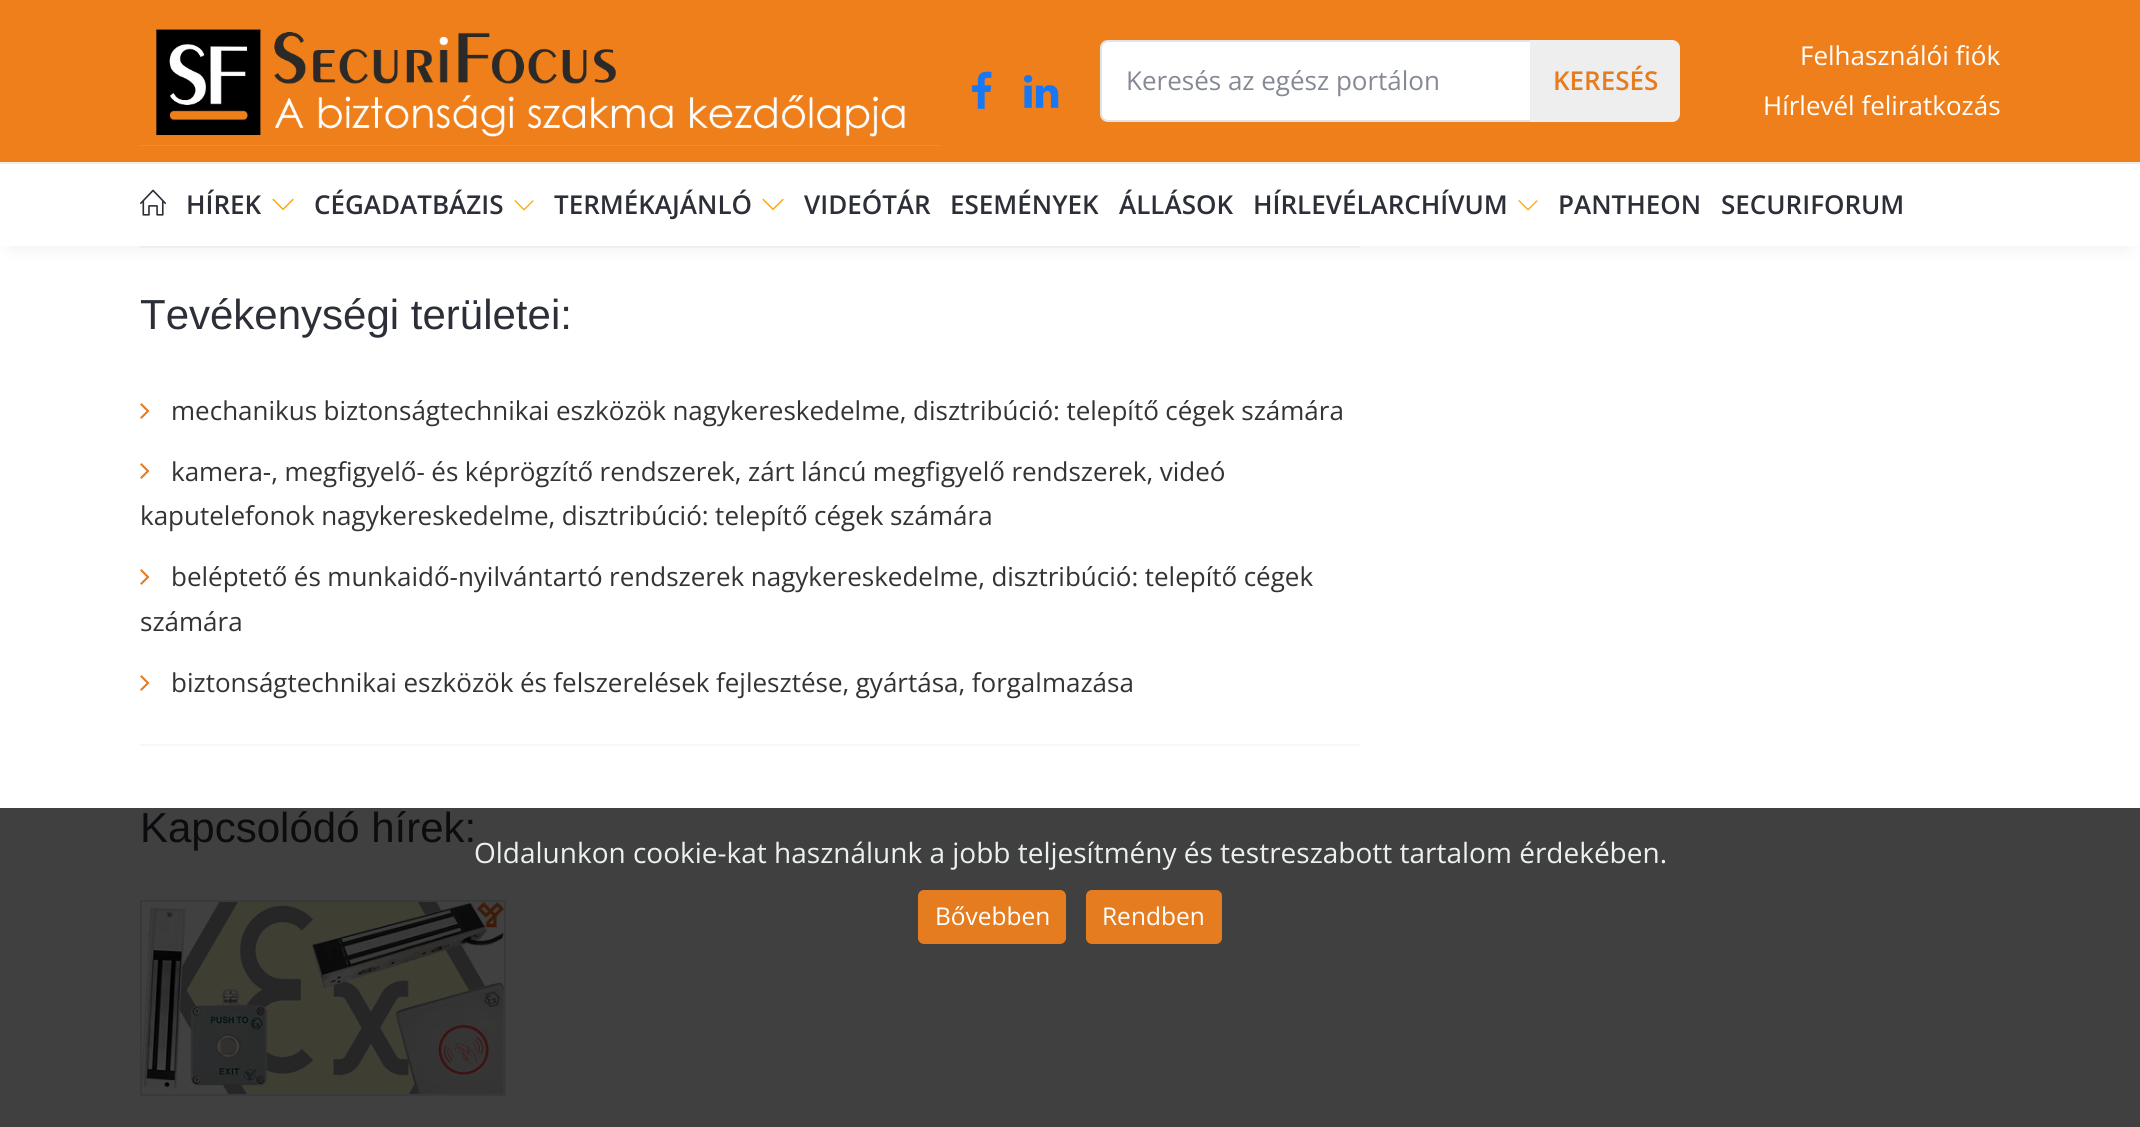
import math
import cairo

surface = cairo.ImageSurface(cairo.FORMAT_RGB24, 2140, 1127)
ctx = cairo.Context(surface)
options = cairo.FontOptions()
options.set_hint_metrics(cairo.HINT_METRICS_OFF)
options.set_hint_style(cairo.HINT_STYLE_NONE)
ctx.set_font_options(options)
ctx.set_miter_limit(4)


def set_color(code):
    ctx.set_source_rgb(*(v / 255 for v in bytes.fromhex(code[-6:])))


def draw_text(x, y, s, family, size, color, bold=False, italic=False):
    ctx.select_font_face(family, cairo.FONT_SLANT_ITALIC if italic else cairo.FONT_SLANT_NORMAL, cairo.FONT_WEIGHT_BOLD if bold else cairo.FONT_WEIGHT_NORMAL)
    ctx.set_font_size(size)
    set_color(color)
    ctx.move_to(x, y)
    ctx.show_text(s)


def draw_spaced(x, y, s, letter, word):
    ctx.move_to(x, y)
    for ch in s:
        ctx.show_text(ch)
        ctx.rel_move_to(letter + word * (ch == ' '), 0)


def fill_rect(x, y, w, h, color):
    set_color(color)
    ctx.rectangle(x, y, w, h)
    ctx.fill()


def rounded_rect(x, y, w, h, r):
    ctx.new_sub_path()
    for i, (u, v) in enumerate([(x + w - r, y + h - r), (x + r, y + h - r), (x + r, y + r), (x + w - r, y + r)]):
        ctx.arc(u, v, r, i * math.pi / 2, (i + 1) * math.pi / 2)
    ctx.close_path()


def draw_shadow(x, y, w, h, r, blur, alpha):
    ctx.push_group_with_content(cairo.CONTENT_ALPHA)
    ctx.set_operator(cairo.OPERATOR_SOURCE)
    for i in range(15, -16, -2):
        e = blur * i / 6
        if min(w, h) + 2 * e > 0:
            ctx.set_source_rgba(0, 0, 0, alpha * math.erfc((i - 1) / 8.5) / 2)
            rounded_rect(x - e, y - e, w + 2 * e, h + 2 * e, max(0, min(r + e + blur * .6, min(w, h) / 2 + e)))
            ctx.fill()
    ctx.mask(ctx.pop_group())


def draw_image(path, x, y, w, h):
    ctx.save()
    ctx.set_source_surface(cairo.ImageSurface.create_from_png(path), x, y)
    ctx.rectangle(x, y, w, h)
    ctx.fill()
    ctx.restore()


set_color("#ffffff")
ctx.paint()
fill_rect(0, 808, 2140, 319, "#404040")
fill_rect(140, 246, 1220, 2, "#f7f7f7")
set_color("#000000")
draw_shadow(12, 22, 2116, 222, 0, 10, 0.1)
fill_rect(0, 0, 2140, 162, "#ef7f1a")
fill_rect(0, 162, 2140, 2, "#eeeeee")
draw_image("assets/img1.png", 140, 16, 800, 130)
draw_image("assets/img2.png", 972, 71, 20, 38)
draw_image("assets/img3.png", 1024, 75, 35, 33)
set_color("#ffffff")
ctx.new_path()
ctx.move_to(1107, 42)
ctx.line_to(1530, 42)
ctx.line_to(1530, 120)
ctx.line_to(1107, 120)
ctx.curve_to(1104, 120, 1102, 118, 1102, 115)
ctx.line_to(1102, 47)
ctx.curve_to(1102, 44, 1104, 42, 1107, 42)
ctx.close_path()
ctx.fill()
ctx.new_path()
ctx.move_to(1108, 41)
ctx.line_to(1531, 41)
ctx.line_to(1531, 121)
ctx.line_to(1108, 121)
ctx.curve_to(1104, 121, 1101, 118, 1101, 114)
ctx.line_to(1101, 48)
ctx.curve_to(1101, 44, 1104, 41, 1108, 41)
ctx.close_path()
set_color("#e0e4ea")
ctx.stroke()
draw_text(1126, 90, "Keresés az egész portálon", "Open Sans", 26, "#858993")
set_color("#eeeeee")
ctx.new_path()
ctx.move_to(1530, 40)
ctx.line_to(1672, 40)
ctx.curve_to(1676.5, 40, 1680, 43.5, 1680, 48)
ctx.line_to(1680, 114)
ctx.curve_to(1680, 118.5, 1676.5, 122, 1672, 122)
ctx.line_to(1530, 122)
ctx.close_path()
ctx.fill()
draw_text(1553, 90, "KERESÉS", "Open Sans SemiBold", 26, "#e57d20")
draw_text(1800, 65, "Felhasználói fiók", "Open Sans", 26, "#ffffff")
draw_text(1763, 115, "Hírlevél feliratkozás", "Open Sans", 26, "#ffffff")
fill_rect(0, 164, 2140, 82, "#ffffff")
draw_image("assets/img4.png", 140, 189, 26, 27)
draw_text(186, 214, "HÍREK", "Open Sans SemiBold", 26, "#2c2f37")
draw_image("assets/img5.png", 272, 198, 22, 12)
draw_text(314, 214, "CÉGADATBÁZIS", "Open Sans SemiBold", 26, "#2c2f37")
draw_image("assets/img6.png", 514, 200, 20, 11)
draw_text(554, 214, "TERMÉKAJÁNLÓ", "Open Sans SemiBold", 26, "#2c2f37")
draw_image("assets/img5.png", 762, 198, 22, 12)
draw_text(804, 214, "VIDEÓTÁR", "Open Sans SemiBold", 26, "#2c2f37")
draw_text(950, 214, "ESEMÉNYEK", "Open Sans SemiBold", 26, "#2c2f37")
draw_text(1119, 214, "ÁLLÁSOK", "Open Sans SemiBold", 26, "#2c2f37")
draw_text(1253, 214, "HÍRLEVÉLARCHÍVUM", "Open Sans SemiBold", 26, "#2c2f37")
draw_image("assets/img6.png", 1518, 200, 20, 11)
draw_text(1558, 214, "PANTHEON", "Open Sans SemiBold", 26, "#2c2f37")
draw_text(1721, 214, "SECURIFORUM", "Open Sans SemiBold", 26, "#2c2f37")
draw_text(140, 329, "Tevékenységi területei:", "Liberation Sans", 42, "#2c2f37")
draw_image("assets/img7.png", 140, 403, 10, 16)
ctx.select_font_face("Open Sans")
ctx.set_font_size(26)
set_color("#333333")
draw_spaced(171, 420, "mechanikus biztonságtechnikai eszközök nagykereskedelme, disztribúció: telepítő cégek számára", 0, -0.25)
draw_image("assets/img7.png", 140, 463, 10, 16)
draw_spaced(171, 481, "kamera-, megfigyelő- és képrögzítő rendszerek, zárt láncú megfigyelő rendszerek, videó", 0, -0.25)
draw_spaced(140, 525, "kaputelefonok nagykereskedelme, disztribúció: telepítő cégek számára", 0, -0.25)
draw_image("assets/img7.png", 140, 569, 10, 16)
draw_spaced(171, 586, "beléptető és munkaidő-nyilvántartó rendszerek nagykereskedelme, disztribúció: telepítő cégek", 0, -0.25)
draw_text(140, 631, "számára", "Open Sans", 26, "#333333")
draw_image("assets/img7.png", 140, 675, 10, 16)
draw_spaced(171, 692, "biztonságtechnikai eszközök és felszerelések fejlesztése, gyártása, forgalmazása", 0, -0.25)
fill_rect(140, 744, 1220, 2, "#f7f7f7")
draw_text(140, 842, "Kapcsolódó hírek:", "Liberation Sans", 42, "#0b0c0e")
ctx.rectangle(141, 901, 364, 194)
set_color("#38393a")
ctx.stroke()
draw_image("assets/img8.png", 142, 902, 362, 192)
draw_text(474, 863, "Oldalunkon cookie-kat használunk a jobb teljesítmény és testreszabott tartalom érdekében.", "Open Sans", 28, "#ecf0f1")
set_color("#e57d20")
rounded_rect(918, 890, 148, 54, 6)
ctx.fill()
draw_text(935, 925, "Bővebben", "Open Sans", 24.5, "#ffffff")
set_color("#e57d20")
rounded_rect(1086, 890, 136, 54, 6)
ctx.fill()
draw_text(1102, 925, "Rendben", "Open Sans", 24.5, "#ffffff")
surface.write_to_png("output.png")
